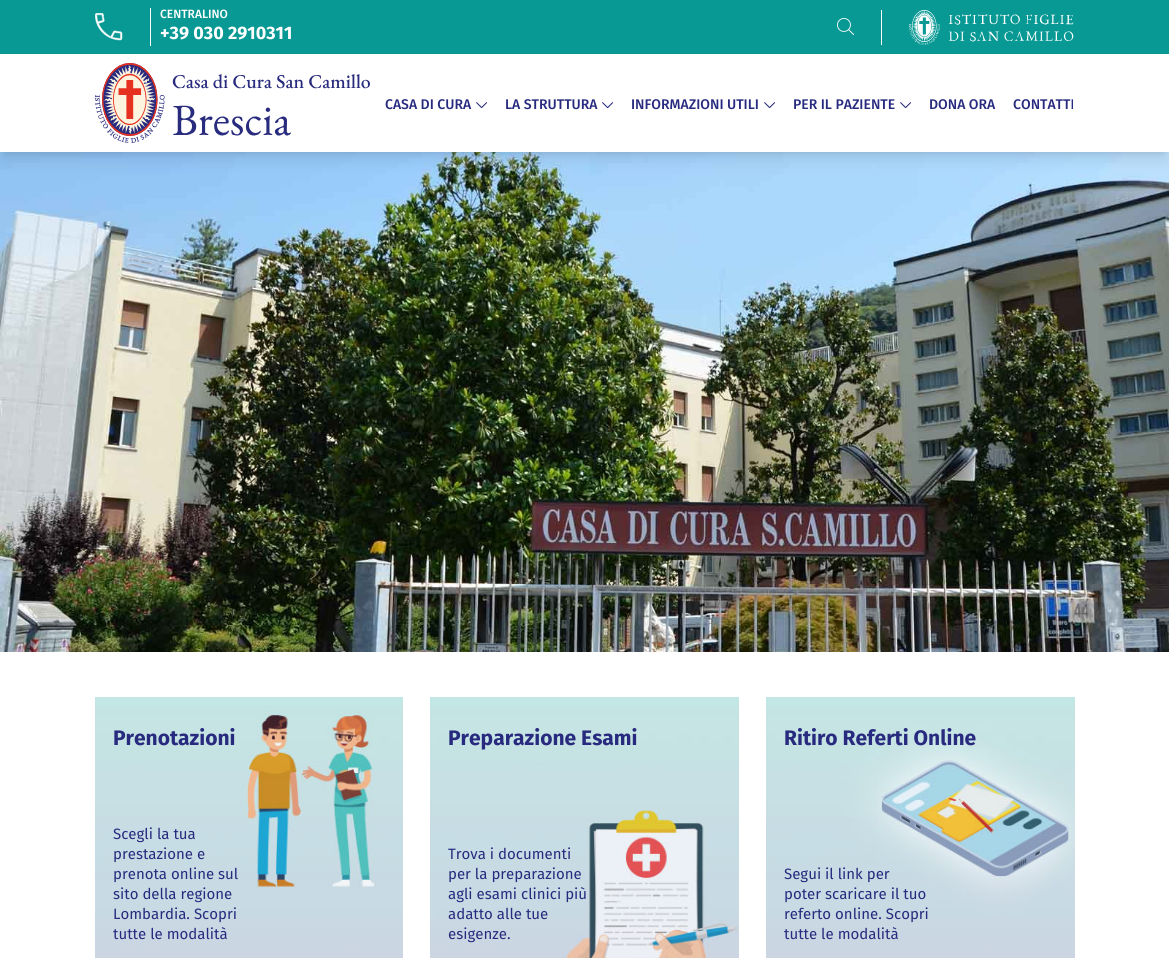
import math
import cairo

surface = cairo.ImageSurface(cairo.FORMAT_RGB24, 1169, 958)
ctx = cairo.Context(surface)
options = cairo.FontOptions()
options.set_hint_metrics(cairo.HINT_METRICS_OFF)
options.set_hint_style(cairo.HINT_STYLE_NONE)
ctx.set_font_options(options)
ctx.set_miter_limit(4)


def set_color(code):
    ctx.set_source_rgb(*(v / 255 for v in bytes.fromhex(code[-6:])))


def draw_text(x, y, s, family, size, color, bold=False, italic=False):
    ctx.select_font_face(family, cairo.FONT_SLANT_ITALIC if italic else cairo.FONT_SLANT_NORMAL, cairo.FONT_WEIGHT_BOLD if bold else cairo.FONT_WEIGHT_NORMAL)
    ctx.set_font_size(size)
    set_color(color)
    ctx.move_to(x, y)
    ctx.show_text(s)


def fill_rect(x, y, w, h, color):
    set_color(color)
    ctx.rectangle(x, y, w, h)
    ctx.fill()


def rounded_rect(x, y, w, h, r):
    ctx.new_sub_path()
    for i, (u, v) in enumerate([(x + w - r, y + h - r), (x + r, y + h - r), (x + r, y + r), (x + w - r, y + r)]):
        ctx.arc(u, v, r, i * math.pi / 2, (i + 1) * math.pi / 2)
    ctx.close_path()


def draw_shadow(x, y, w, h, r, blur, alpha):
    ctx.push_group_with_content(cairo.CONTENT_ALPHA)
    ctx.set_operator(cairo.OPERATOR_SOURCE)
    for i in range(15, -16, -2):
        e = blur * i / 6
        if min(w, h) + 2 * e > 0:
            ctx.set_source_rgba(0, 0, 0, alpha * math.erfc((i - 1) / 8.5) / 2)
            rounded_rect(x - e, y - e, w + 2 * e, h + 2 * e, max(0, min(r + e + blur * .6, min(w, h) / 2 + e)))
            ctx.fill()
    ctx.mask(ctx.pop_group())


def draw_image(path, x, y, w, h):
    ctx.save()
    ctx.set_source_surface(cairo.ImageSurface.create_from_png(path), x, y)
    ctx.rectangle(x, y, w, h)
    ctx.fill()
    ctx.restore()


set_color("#ffffff")
ctx.paint()
fill_rect(0, 0, 1169, 54, "#089994")
draw_image("assets/img1.png", 95, 13, 28, 28)
fill_rect(150, 8, 1, 38, "#ffffff")
draw_text(160, 18, "CENTRALINO", "Fira Sans Medium", 12, "#ffffff")
draw_text(160, 39, "+39 030 2910311", "Fira Sans", 18, "#ffffff", bold=True)
draw_image("assets/img2.png", 837, 18, 17, 17)
fill_rect(881, 10, 1, 35, "#ffffff")
draw_image("assets/img3.png", 909, 10, 165, 35)
draw_image("assets/img6.png", 0, 152, 1169, 500)
set_color("#000000")
draw_shadow(4, 62, 1161, 90, 0, 3, 0.1)
draw_shadow(3, 67, 1163, 92, 0, 7.5, 0.1)
fill_rect(0, 56, 1169, 96, "#ffffff")
draw_image("assets/img4.png", 95, 63, 275, 80)
draw_text(385, 109, "CASA DI CURA", "Fira Sans Medium", 14, "#272a7e")
draw_image("assets/img5.png", 476, 102, 11, 6)
draw_text(505, 109, "LA STRUTTURA", "Fira Sans Medium", 14, "#272a7e")
draw_image("assets/img5.png", 602, 102, 11, 6)
draw_text(631, 109, "INFORMAZIONI UTILI", "Fira Sans Medium", 14, "#272a7e")
draw_image("assets/img5.png", 764, 102, 11, 6)
draw_text(793, 109, "PER IL PAZIENTE", "Fira Sans Medium", 14, "#272a7e")
draw_image("assets/img5.png", 900, 102, 11, 6)
draw_text(929, 109, "DONA ORA", "Fira Sans Medium", 14, "#272a7e")
draw_text(1013, 109, "CONTATTI", "Fira Sans Medium", 14, "#272a7e")
draw_image("assets/img7.png", 95, 697, 308, 261)
draw_text(113, 745, "Prenotazioni", "Fira Sans", 21, "#272a7e", bold=True)
draw_text(113, 839, "Scegli la tua", "Fira Sans", 15, "#272a7e")
draw_text(113, 859, "prestazione e", "Fira Sans", 15, "#272a7e")
draw_text(113, 879, "prenota online sul", "Fira Sans", 15, "#272a7e")
draw_text(113, 899, "sito della regione", "Fira Sans", 15, "#272a7e")
draw_text(113, 919, "Lombardia. Scopri", "Fira Sans", 15, "#272a7e")
draw_text(113, 939, "tutte le modalità", "Fira Sans", 15, "#272a7e")
draw_image("assets/img8.png", 430, 697, 309, 261)
draw_text(448, 745, "Preparazione Esami", "Fira Sans", 21, "#272a7e", bold=True)
draw_text(448, 859, "Trova i documenti", "Fira Sans", 15, "#272a7e")
draw_text(448, 879, "per la preparazione", "Fira Sans", 15, "#272a7e")
draw_text(448, 899, "agli esami clinici più", "Fira Sans", 15, "#272a7e")
draw_text(448, 919, "adatto alle tue", "Fira Sans", 15, "#272a7e")
draw_text(448, 939, "esigenze.", "Fira Sans", 15, "#272a7e")
draw_image("assets/img9.png", 766, 697, 309, 261)
draw_text(784, 745, "Ritiro Referti Online", "Fira Sans", 21, "#272a7e", bold=True)
draw_text(784, 879, "Segui il link per", "Fira Sans", 15, "#272a7e")
draw_text(784, 899, "poter scaricare il tuo", "Fira Sans", 15, "#272a7e")
draw_text(784, 919, "referto online. Scopri", "Fira Sans", 15, "#272a7e")
draw_text(784, 939, "tutte le modalità", "Fira Sans", 15, "#272a7e")
surface.write_to_png("output.png")
